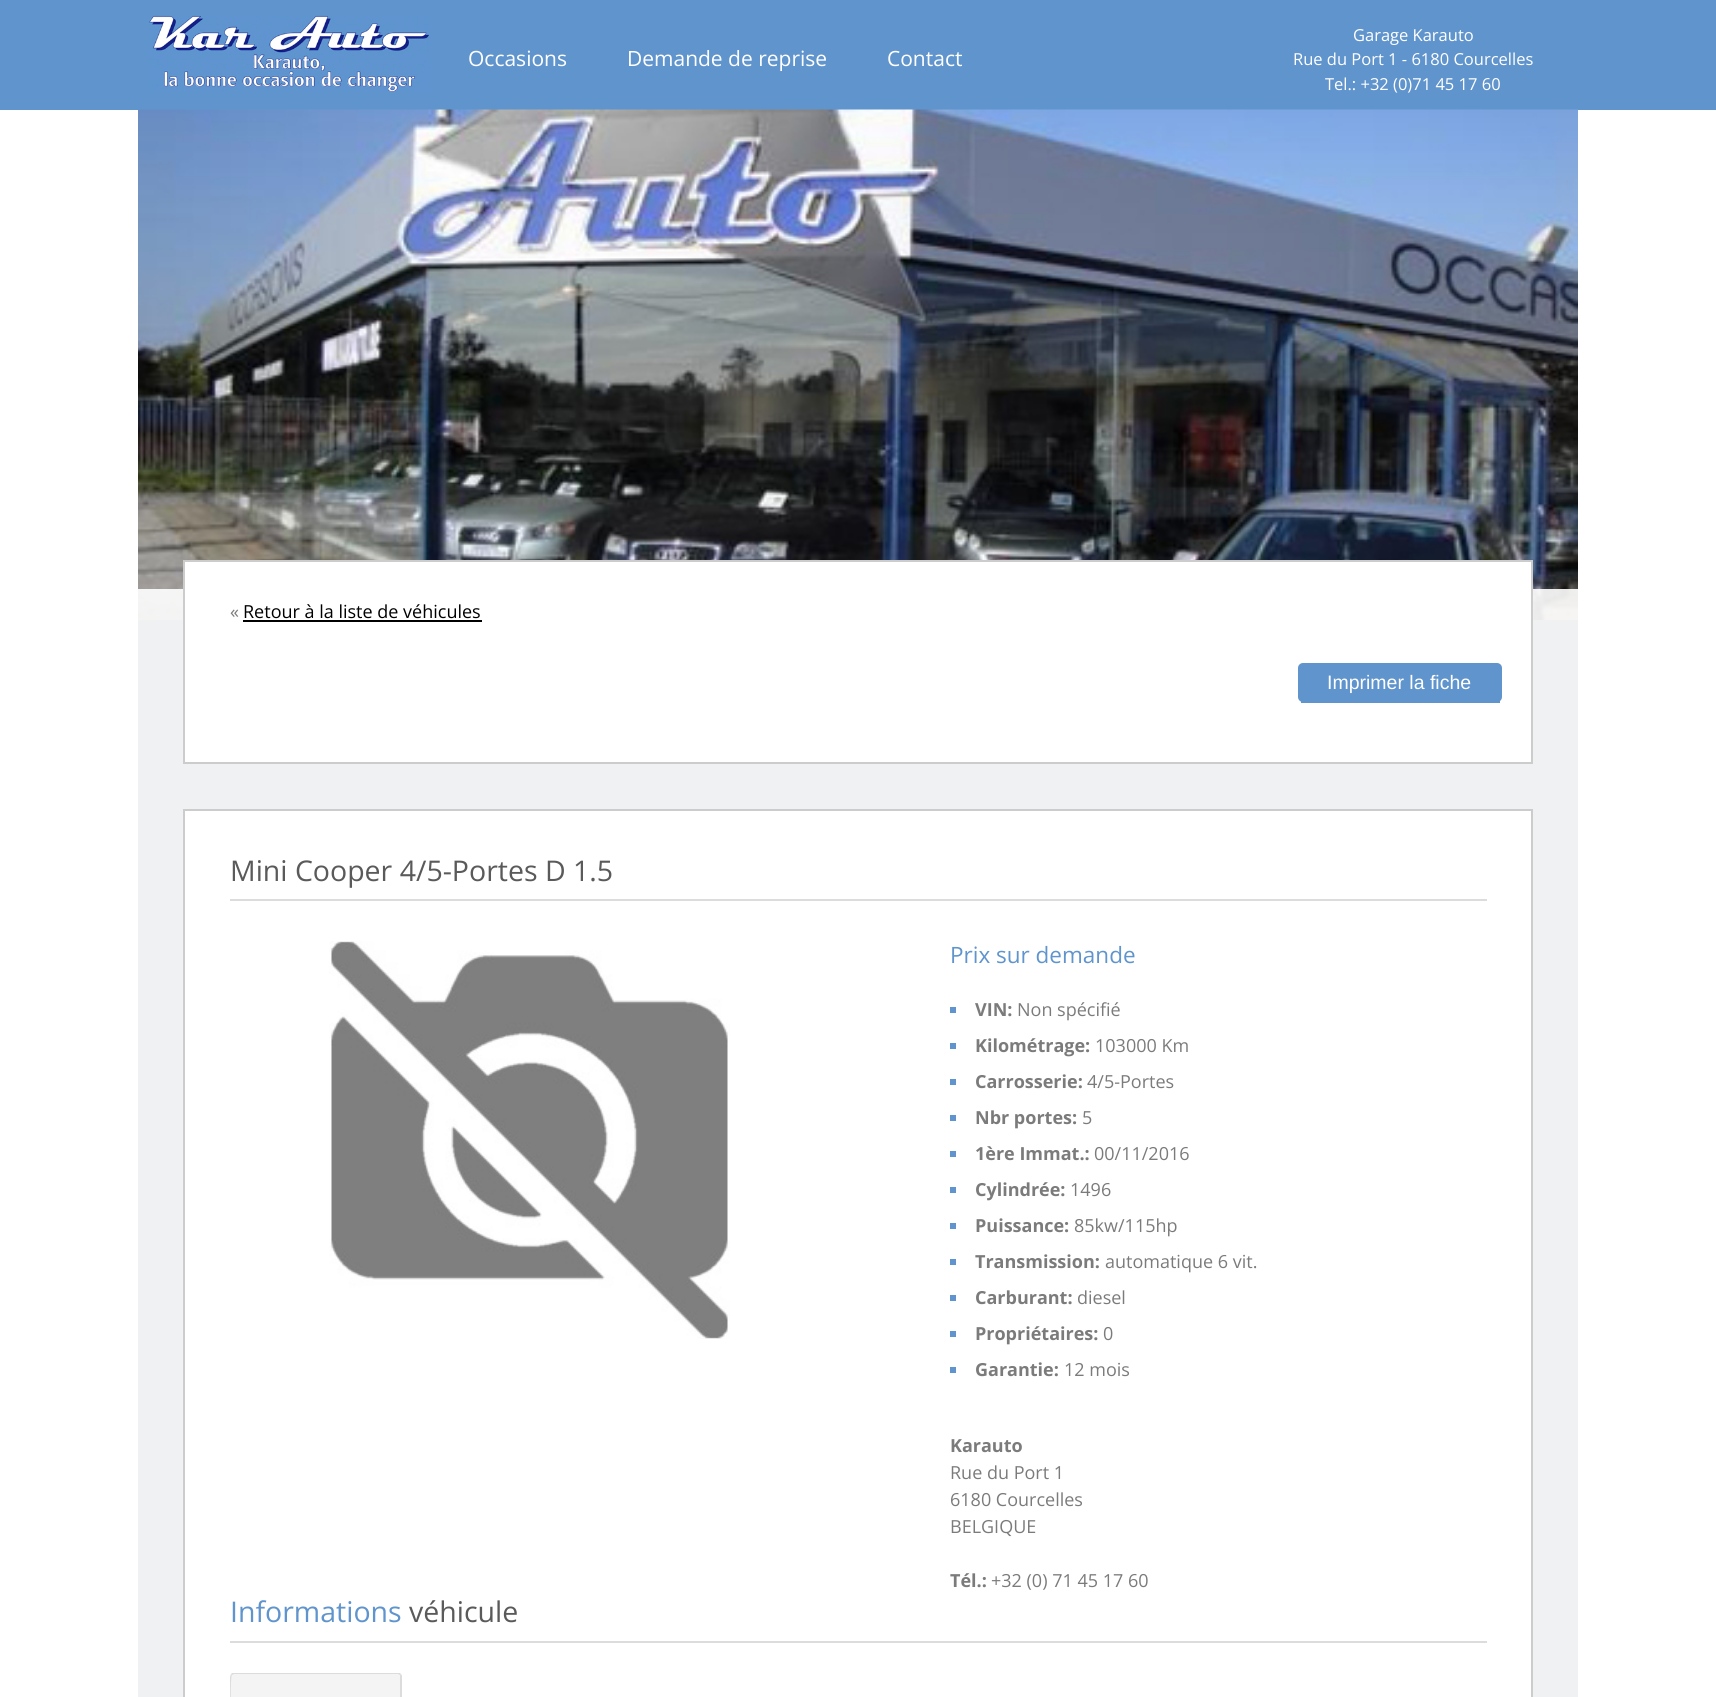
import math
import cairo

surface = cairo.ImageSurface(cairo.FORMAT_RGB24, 1716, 1697)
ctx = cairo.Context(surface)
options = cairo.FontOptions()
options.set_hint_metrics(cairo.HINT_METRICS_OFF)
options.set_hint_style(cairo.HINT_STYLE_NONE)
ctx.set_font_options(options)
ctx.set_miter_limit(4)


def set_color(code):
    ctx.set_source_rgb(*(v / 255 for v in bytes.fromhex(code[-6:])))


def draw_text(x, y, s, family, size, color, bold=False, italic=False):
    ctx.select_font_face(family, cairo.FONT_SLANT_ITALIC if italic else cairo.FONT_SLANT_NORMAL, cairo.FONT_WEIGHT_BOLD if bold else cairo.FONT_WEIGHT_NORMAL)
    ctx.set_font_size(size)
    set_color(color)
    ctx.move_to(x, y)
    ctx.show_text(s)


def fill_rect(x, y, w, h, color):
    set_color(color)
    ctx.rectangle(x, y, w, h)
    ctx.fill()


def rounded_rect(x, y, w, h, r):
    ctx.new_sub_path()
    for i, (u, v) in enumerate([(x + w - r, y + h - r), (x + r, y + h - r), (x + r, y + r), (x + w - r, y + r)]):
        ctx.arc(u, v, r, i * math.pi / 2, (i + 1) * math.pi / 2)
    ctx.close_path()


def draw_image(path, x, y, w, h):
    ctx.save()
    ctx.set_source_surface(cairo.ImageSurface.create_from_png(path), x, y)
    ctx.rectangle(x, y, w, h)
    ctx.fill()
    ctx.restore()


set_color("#ffffff")
ctx.paint()
fill_rect(0, 0, 1716, 110, "#6094cd")
draw_image("assets/img1.png", 149, 15, 282, 77)
draw_text(468, 66, "Occasions", "Open Sans", 21, "#ffffff")
draw_text(627, 66, "Demande de reprise", "Open Sans", 21, "#ffffff")
draw_text(887, 66, "Contact", "Open Sans", 21, "#ffffff")
draw_text(1353, 41, "Garage Karauto", "Open Sans", 16.5, "#ffffff")
draw_text(1293, 65, "Rue du Port 1 - 6180 Courcelles", "Open Sans", 16.5, "#ffffff")
draw_text(1325, 90, "Tel.: +32 (0)71 45 17 60", "Open Sans", 16.5, "#ffffff")
draw_image("assets/img2.png", 138, 109, 1440, 511)
ctx.set_source_rgba(1, 1, 1, 0.9)
ctx.rectangle(138, 589, 1440, 31)
ctx.fill()
fill_rect(138, 620, 1440, 1077, "#f0f1f3")
set_color("#ffffff")
ctx.rectangle(184, 561, 1348, 202)
ctx.fill_preserve()
set_color("#cccccc")
ctx.stroke()
draw_text(230, 618, "«", "Open Sans", 18, "#7b7b7b")
draw_text(243, 618, "Retour à la liste de véhicules", "Open Sans", 18, "#000000")
fill_rect(243, 620, 239, 2, "#000000")
set_color("#6094cd")
rounded_rect(1298, 663, 204, 39, 5)
ctx.fill()
fill_rect(1301, 701, 199, 2, "#6094cd")
draw_text(1327, 689, "Imprimer la fiche", "Liberation Sans", 19.5, "#ffffff")
ctx.rectangle(184, 810, 1348, 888)
ctx.fill_preserve()
set_color("#cccccc")
ctx.stroke()
fill_rect(230, 899, 1257, 2, "#dddcdc")
draw_text(230, 881, "Mini Cooper 4/5-Portes D 1.5", "Open Sans", 28.5, "#5a5a5a")
draw_image("assets/img3.png", 329, 941, 401, 398)
draw_text(950, 963, "Prix sur demande", "Open Sans", 22.5, "#6094cd")
fill_rect(950, 1007, 6, 6, "#6094cd")
draw_text(975, 1016, "VIN:", "Open Sans", 18, "#7b7b7b", bold=True)
draw_text(1017, 1016, "Non spécifié", "Open Sans", 18, "#7b7b7b")
fill_rect(950, 1043, 6, 6, "#6094cd")
draw_text(975, 1052, "Kilométrage:", "Open Sans", 18, "#7b7b7b", bold=True)
draw_text(1095, 1052, "103000 Km", "Open Sans", 18, "#7b7b7b")
fill_rect(950, 1079, 6, 6, "#6094cd")
draw_text(975, 1088, "Carrosserie:", "Open Sans", 18, "#7b7b7b", bold=True)
draw_text(1087, 1088, "4/5-Portes", "Open Sans", 18, "#7b7b7b")
fill_rect(950, 1115, 6, 6, "#6094cd")
draw_text(975, 1124, "Nbr portes:", "Open Sans", 18, "#7b7b7b", bold=True)
draw_text(1082, 1124, "5", "Open Sans", 18, "#7b7b7b")
fill_rect(950, 1151, 6, 6, "#6094cd")
draw_text(975, 1160, "1ère Immat.:", "Open Sans", 18, "#7b7b7b", bold=True)
draw_text(1094, 1160, "00/11/2016", "Open Sans", 18, "#7b7b7b")
fill_rect(950, 1187, 6, 6, "#6094cd")
draw_text(975, 1196, "Cylindrée:", "Open Sans", 18, "#7b7b7b", bold=True)
draw_text(1070, 1196, "1496", "Open Sans", 18, "#7b7b7b")
fill_rect(950, 1223, 6, 6, "#6094cd")
draw_text(975, 1232, "Puissance:", "Open Sans", 18, "#7b7b7b", bold=True)
draw_text(1074, 1232, "85kw/115hp", "Open Sans", 18, "#7b7b7b")
fill_rect(950, 1259, 6, 6, "#6094cd")
draw_text(975, 1268, "Transmission:", "Open Sans", 18, "#7b7b7b", bold=True)
draw_text(1105, 1268, "automatique 6 vit.", "Open Sans", 18, "#7b7b7b")
fill_rect(950, 1295, 6, 6, "#6094cd")
draw_text(975, 1304, "Carburant:", "Open Sans", 18, "#7b7b7b", bold=True)
draw_text(1077, 1304, "diesel", "Open Sans", 18, "#7b7b7b")
fill_rect(950, 1331, 6, 6, "#6094cd")
draw_text(975, 1340, "Propriétaires:", "Open Sans", 18, "#7b7b7b", bold=True)
draw_text(1103, 1340, "0", "Open Sans", 18, "#7b7b7b")
fill_rect(950, 1367, 6, 6, "#6094cd")
draw_text(975, 1376, "Garantie:", "Open Sans", 18, "#7b7b7b", bold=True)
draw_text(1064, 1376, "12 mois", "Open Sans", 18, "#7b7b7b")
draw_text(950, 1452, "Karauto", "Open Sans", 18, "#7b7b7b", bold=True)
draw_text(950, 1479, "Rue du Port 1", "Open Sans", 18, "#7b7b7b")
draw_text(950, 1506, "6180 Courcelles", "Open Sans", 18, "#7b7b7b")
draw_text(950, 1533, "BELGIQUE", "Open Sans", 18, "#7b7b7b")
draw_text(950, 1587, "Tél.:", "Open Sans", 18, "#7b7b7b", bold=True)
draw_text(991, 1587, "+32 (0) 71 45 17 60", "Open Sans", 18, "#7b7b7b")
fill_rect(230, 1641, 1257, 2, "#dddcdc")
draw_text(230, 1622, "Informations", "Open Sans", 28.5, "#6094cd")
draw_text(409, 1622, "véhicule", "Open Sans", 28.5, "#5a5a5a")
set_color("#f4f4f4")
ctx.new_path()
ctx.move_to(235, 1673)
ctx.line_to(397, 1673)
ctx.curve_to(400, 1673, 402, 1675, 402, 1678)
ctx.line_to(402, 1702)
ctx.line_to(230, 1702)
ctx.line_to(230, 1678)
ctx.curve_to(230, 1675, 232, 1673, 235, 1673)
ctx.close_path()
ctx.fill()
ctx.save()
ctx.rectangle(230, 1673, 172, 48)
ctx.clip()
set_color("#dddcdc")
ctx.new_path()
ctx.move_to(234, 1674)
ctx.line_to(232, 1675)
ctx.line_to(231, 1674)
ctx.line_to(233, 1672)
ctx.line_to(399, 1672)
ctx.line_to(401, 1674)
ctx.line_to(400, 1675)
ctx.line_to(398, 1674)
ctx.close_path()
ctx.fill()
ctx.restore()
set_color("#dddcdc")
ctx.new_path()
ctx.move_to(402, 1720)
ctx.line_to(402, 1677)
ctx.curve_to(402, 1676, 402, 1675, 401, 1674)
ctx.line_to(400, 1675)
ctx.line_to(400, 1677)
ctx.line_to(400, 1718)
ctx.close_path()
ctx.fill()
ctx.new_path()
ctx.move_to(230, 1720)
ctx.line_to(231, 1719)
ctx.curve_to(231, 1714, 230, 1677, 232, 1675)
ctx.line_to(231, 1674)
ctx.line_to(230, 1677)
ctx.close_path()
ctx.fill()
surface.write_to_png("output.png")
